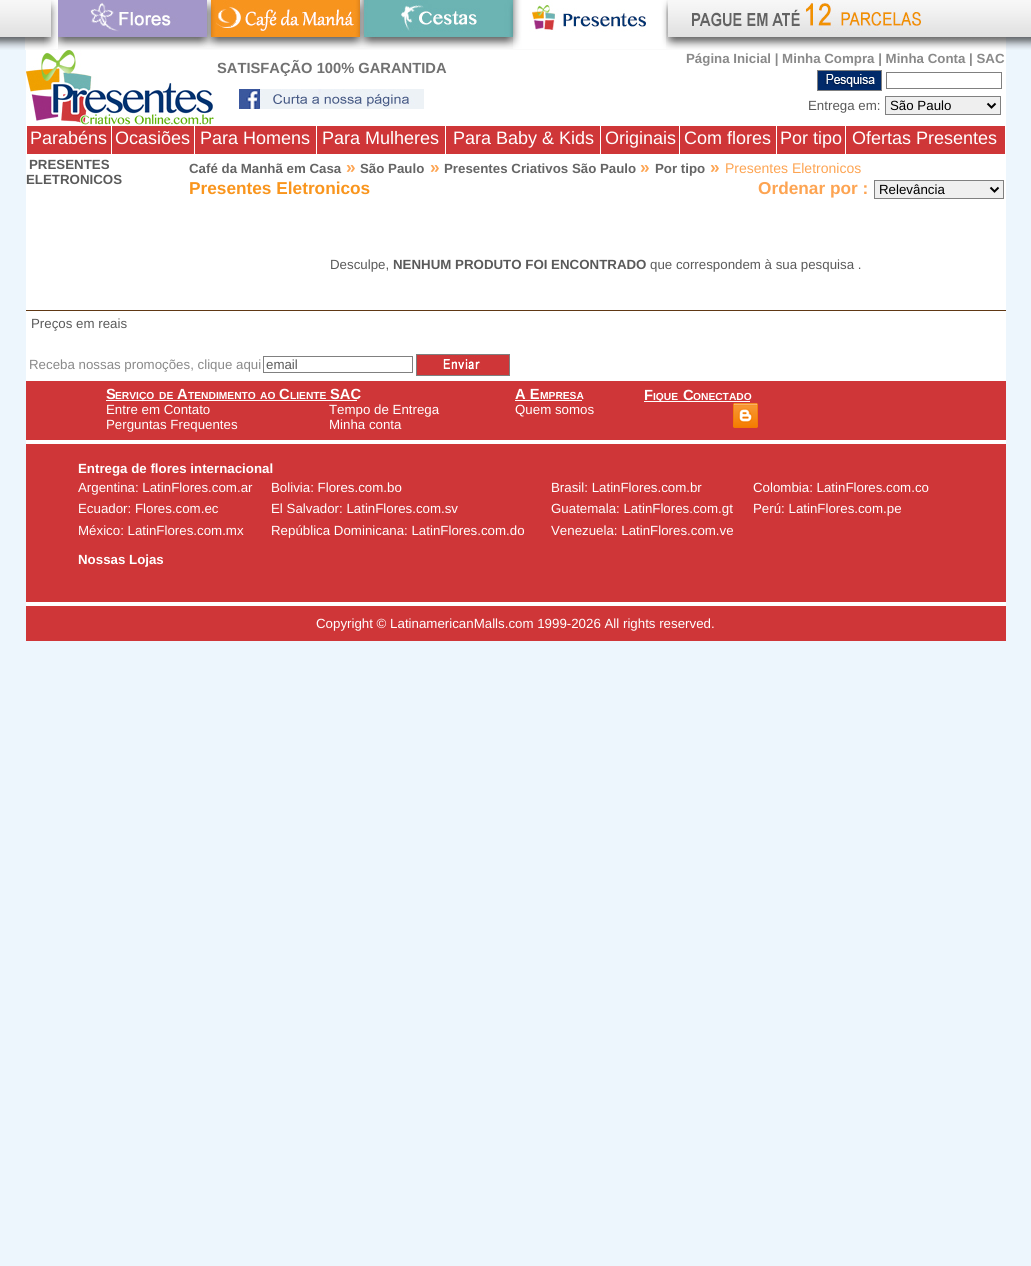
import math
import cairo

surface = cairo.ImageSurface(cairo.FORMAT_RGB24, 1031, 1266)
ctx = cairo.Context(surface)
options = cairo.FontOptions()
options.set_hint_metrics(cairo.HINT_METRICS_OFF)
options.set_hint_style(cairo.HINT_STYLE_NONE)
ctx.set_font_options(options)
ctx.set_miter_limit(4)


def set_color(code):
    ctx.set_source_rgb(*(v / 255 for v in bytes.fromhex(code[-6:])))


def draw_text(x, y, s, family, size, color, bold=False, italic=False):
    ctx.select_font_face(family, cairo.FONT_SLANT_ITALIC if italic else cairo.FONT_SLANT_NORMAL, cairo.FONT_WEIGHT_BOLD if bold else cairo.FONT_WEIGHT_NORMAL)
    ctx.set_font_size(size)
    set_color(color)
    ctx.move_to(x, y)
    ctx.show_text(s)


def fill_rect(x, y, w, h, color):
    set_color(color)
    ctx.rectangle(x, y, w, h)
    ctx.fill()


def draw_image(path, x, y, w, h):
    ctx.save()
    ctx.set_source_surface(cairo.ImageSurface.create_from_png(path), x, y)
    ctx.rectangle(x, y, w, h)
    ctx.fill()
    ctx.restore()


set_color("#edf6fd")
ctx.paint()
draw_image("assets/img1.png", 0, 0, 1031, 50)
draw_image("assets/img2.png", 25, 0, 981, 50)
draw_image("assets/img3.png", 44, 0, 14, 49)
draw_image("assets/img4.png", 58, 0, 149, 48)
draw_image("assets/img5.png", 207, 0, 153, 48)
draw_image("assets/img6.png", 360, 0, 153, 48)
draw_image("assets/img7.png", 513, 0, 153, 49)
draw_image("assets/img8.png", 666, 0, 255, 49)
fill_rect(26, 50, 980, 105, "#ffffff")
draw_image("assets/img9.png", 26, 50, 188, 75)
draw_text(217, 73, "SATISFAÇÃO 100% GARANTIDA", "Liberation Sans", 14.7, "#717171", bold=True)
draw_image("assets/img10.png", 239, 89, 185, 20)
draw_text(686, 63, "Página Inicial | Minha Compra | Minha Conta | SAC", "Liberation Sans", 13.3, "#898989", bold=True)
ctx.rectangle(817.5, 70.5, 64, 20)
set_color("#808080")
ctx.set_line_width(1)
ctx.stroke()
draw_image("assets/img11.png", 818, 71, 63, 19)
ctx.rectangle(886.5, 72.5, 115, 16)
ctx.stroke()
draw_text(808, 110, "Entrega em:", "Liberation Sans", 13.3, "#5a5a5a")
set_color("#efefef")
ctx.rectangle(885.5, 96.5, 115, 18)
ctx.fill_preserve()
set_color("#808080")
ctx.stroke()
ctx.new_path()
ctx.move_to(987.5, 103.5)
ctx.line_to(991.5, 107.5)
ctx.line_to(995.5, 103.5)
set_color("#000000")
ctx.set_line_width(2)
ctx.stroke()
draw_text(890, 110, "São Paulo", "Liberation Sans", 13.3, "#000000")
fill_rect(27, 126, 84, 28, "#cf3638")
draw_text(30, 144, "Parabéns", "Liberation Sans", 18, "#ffffff")
fill_rect(112, 126, 82, 28, "#cf3638")
draw_text(115, 144, "Ocasiões", "Liberation Sans", 18, "#ffffff")
fill_rect(195, 126, 121, 28, "#cf3638")
draw_text(200, 144, "Para Homens", "Liberation Sans", 18, "#ffffff")
fill_rect(317, 126, 128, 28, "#cf3638")
draw_text(322, 144, "Para Mulheres", "Liberation Sans", 18, "#ffffff")
fill_rect(446, 126, 154, 28, "#cf3638")
draw_text(453, 144, "Para Baby & Kids", "Liberation Sans", 18, "#ffffff")
fill_rect(601, 126, 78, 28, "#cf3638")
draw_text(605, 144, "Originais", "Liberation Sans", 18, "#ffffff")
fill_rect(680, 126, 96, 28, "#cf3638")
draw_text(684, 144, "Com flores", "Liberation Sans", 18, "#ffffff")
fill_rect(777, 126, 68, 28, "#cf3638")
draw_text(780, 144, "Por tipo", "Liberation Sans", 18, "#ffffff")
fill_rect(846, 126, 159, 28, "#cf3638")
draw_text(852, 144, "Ofertas Presentes", "Liberation Sans", 18, "#ffffff")
fill_rect(26, 155, 980, 155, "#ffffff")
draw_text(29, 169, "PRESENTES", "Liberation Sans", 13.3, "#5a5a5a", bold=True)
draw_text(26, 184, "ELETRONICOS", "Liberation Sans", 13.3, "#5a5a5a", bold=True)
draw_text(189, 173, "Café da Manhã em Casa", "Liberation Sans", 13.3, "#656565", bold=True)
draw_text(346, 173, "»", "Liberation Sans", 17.25, "#fda452", bold=True)
draw_text(360, 173, "São Paulo", "Liberation Sans", 13.3, "#656565", bold=True)
draw_text(430, 173, "»", "Liberation Sans", 17.25, "#fda452", bold=True)
draw_text(444, 173, "Presentes Criativos São Paulo", "Liberation Sans", 13.3, "#656565", bold=True)
draw_text(640, 173, "»", "Liberation Sans", 17.25, "#fda452", bold=True)
draw_text(655, 173, "Por tipo", "Liberation Sans", 13.3, "#656565", bold=True)
draw_text(710, 173, "»", "Liberation Sans", 17.25, "#fda452", bold=True)
draw_text(725, 173, "Presentes Eletronicos", "Liberation Sans", 14, "#fda452")
draw_text(189, 194, "Presentes Eletronicos", "Liberation Sans", 17.25, "#f9951d", bold=True)
draw_text(758, 194, "Ordenar por :", "Liberation Sans", 17.25, "#fda452", bold=True)
set_color("#efefef")
ctx.rectangle(874.5, 180.5, 129, 18)
ctx.fill_preserve()
set_color("#808080")
ctx.set_line_width(1)
ctx.stroke()
ctx.new_path()
ctx.move_to(990.5, 187.5)
ctx.line_to(994.5, 191.5)
ctx.line_to(998.5, 187.5)
set_color("#000000")
ctx.set_line_width(2)
ctx.stroke()
draw_text(879, 194, "Relevância", "Liberation Sans", 13.3, "#000000")
draw_text(330, 269, "Desculpe,", "Liberation Sans", 13.3, "#5a5a5a")
draw_text(393, 269, "NENHUM PRODUTO FOI ENCONTRADO", "Liberation Sans", 13.3, "#5a5a5a", bold=True)
draw_text(650, 269, "que correspondem à sua pesquisa .", "Liberation Sans", 13.3, "#5a5a5a")
fill_rect(26, 311, 980, 70, "#ffffff")
fill_rect(26, 310, 980, 1, "#603814")
draw_text(31, 328, "Preços em reais", "Liberation Sans", 13.3, "#5a5a5a")
draw_text(29, 369, "Receba nossas promoções, clique aqui", "Liberation Sans", 13.3, "#898989")
ctx.rectangle(263.5, 356.5, 149, 16)
set_color("#808080")
ctx.set_line_width(1)
ctx.stroke()
draw_text(266, 369, "email", "Liberation Sans", 13.3, "#5a5a5a")
ctx.rectangle(416.5, 354.5, 93, 21)
set_color("#808080")
ctx.stroke()
draw_image("assets/img12.png", 417, 355, 92, 20)
fill_rect(26, 381, 980, 260, "#cf3638")
draw_text(106, 399, "S", "Liberation Sans", 14.7, "#ffffff", bold=True)
fill_rect(106, 400, 251, 1, "#ffffff")
draw_text(115, 399, "ERVIÇO", "Liberation Sans", 10.25, "#ffffff", bold=True)
draw_text(159, 399, "DE", "Liberation Sans", 10.25, "#ffffff", bold=True)
draw_text(177, 399, "A", "Liberation Sans", 14.7, "#ffffff", bold=True)
draw_text(188, 399, "TENDIMENTO", "Liberation Sans", 10.25, "#ffffff", bold=True)
draw_text(260, 399, "AO", "Liberation Sans", 10.25, "#ffffff", bold=True)
draw_text(279, 399, "C", "Liberation Sans", 14.7, "#ffffff", bold=True)
draw_text(290, 399, "LIENTE", "Liberation Sans", 10.25, "#ffffff", bold=True)
draw_text(330, 399, "SAC", "Liberation Sans", 14.7, "#ffffff", bold=True)
draw_text(106, 414, "Entre em Contato", "Liberation Sans", 13.3, "#ffffff")
draw_text(329, 414, "Tempo de Entrega", "Liberation Sans", 13.3, "#ffffff")
draw_text(106, 429, "Perguntas Frequentes", "Liberation Sans", 13.3, "#ffffff")
draw_text(329, 429, "Minha conta", "Liberation Sans", 13.3, "#ffffff")
draw_text(515, 399, "A E", "Liberation Sans", 14.7, "#ffffff", bold=True)
draw_text(540, 399, "MPRESA", "Liberation Sans", 10.25, "#ffffff", bold=True)
fill_rect(515, 400, 67, 1, "#ffffff")
draw_text(515, 414, "Quem somos", "Liberation Sans", 13.3, "#ffffff")
draw_text(644, 400, "F", "Liberation Sans", 14.7, "#ffffff", bold=True)
fill_rect(644, 401, 106, 1, "#ffffff")
draw_text(653, 400, "IQUE", "Liberation Sans", 10.25, "#ffffff", bold=True)
draw_text(683, 400, "C", "Liberation Sans", 14.7, "#ffffff", bold=True)
draw_text(693, 400, "ONECTADO", "Liberation Sans", 10.25, "#ffffff", bold=True)
draw_image("assets/img13.png", 733, 403, 25, 25)
fill_rect(26, 440, 980, 4, "#ffffff")
draw_text(78, 473, "Entrega de flores internacional", "Liberation Sans", 13.3, "#ffffff", bold=True)
draw_text(78, 492, "Argentina: LatinFlores.com.ar", "Liberation Sans", 13.3, "#ffffff")
draw_text(271, 492, "Bolivia: Flores.com.bo", "Liberation Sans", 13.3, "#ffffff")
draw_text(551, 492, "Brasil: LatinFlores.com.br", "Liberation Sans", 13.3, "#ffffff")
draw_text(753, 492, "Colombia: LatinFlores.com.co", "Liberation Sans", 13.3, "#ffffff")
draw_text(78, 513, "Ecuador: Flores.com.ec", "Liberation Sans", 13.3, "#ffffff")
draw_text(271, 513, "El Salvador: LatinFlores.com.sv", "Liberation Sans", 13.3, "#ffffff")
draw_text(551, 513, "Guatemala: LatinFlores.com.gt", "Liberation Sans", 13.3, "#ffffff")
draw_text(753, 513, "Perú: LatinFlores.com.pe", "Liberation Sans", 13.3, "#ffffff")
draw_text(78, 535, "México: LatinFlores.com.mx", "Liberation Sans", 13.3, "#ffffff")
draw_text(271, 535, "República Dominicana: LatinFlores.com.do", "Liberation Sans", 13.3, "#ffffff")
draw_text(551, 535, "Venezuela: LatinFlores.com.ve", "Liberation Sans", 13.3, "#ffffff")
draw_text(78, 564, "Nossas Lojas", "Liberation Sans", 13.3, "#ffffff", bold=True)
fill_rect(26, 602, 980, 4, "#ffffff")
draw_text(316, 628, "Copyright © LatinamericanMalls.com 1999-2026 All rights reserved.", "Liberation Sans", 13.3, "#ffffff")
surface.write_to_png("output.png")
